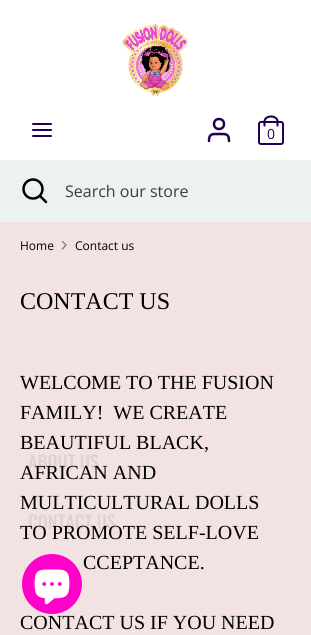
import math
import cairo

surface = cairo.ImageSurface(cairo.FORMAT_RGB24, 311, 635)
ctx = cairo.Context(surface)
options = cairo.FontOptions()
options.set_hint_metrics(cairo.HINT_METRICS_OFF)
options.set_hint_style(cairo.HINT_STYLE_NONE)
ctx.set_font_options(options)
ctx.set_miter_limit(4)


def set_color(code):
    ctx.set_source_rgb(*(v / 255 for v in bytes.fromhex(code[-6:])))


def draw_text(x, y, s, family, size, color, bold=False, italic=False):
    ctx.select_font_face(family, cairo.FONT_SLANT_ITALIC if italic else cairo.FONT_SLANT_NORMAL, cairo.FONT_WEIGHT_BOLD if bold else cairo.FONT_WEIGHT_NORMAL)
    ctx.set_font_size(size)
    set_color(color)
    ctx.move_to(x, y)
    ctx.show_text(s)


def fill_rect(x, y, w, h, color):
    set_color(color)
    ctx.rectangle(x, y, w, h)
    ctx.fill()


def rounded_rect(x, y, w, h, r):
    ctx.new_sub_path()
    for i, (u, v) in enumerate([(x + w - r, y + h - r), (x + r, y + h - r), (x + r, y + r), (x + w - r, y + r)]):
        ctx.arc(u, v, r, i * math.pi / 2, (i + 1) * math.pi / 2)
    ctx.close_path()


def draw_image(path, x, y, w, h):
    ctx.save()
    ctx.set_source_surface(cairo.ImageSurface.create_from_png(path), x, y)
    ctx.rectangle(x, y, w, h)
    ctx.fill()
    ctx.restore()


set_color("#f3e2e2")
ctx.paint()
fill_rect(0, 0, 311, 160, "#ffffff")
draw_image("assets/img1.png", 122, 23, 67, 73)
ctx.new_path()
ctx.move_to(33, 130)
ctx.line_to(51, 130)
ctx.move_to(33, 124)
ctx.line_to(51, 124)
ctx.move_to(33, 136)
ctx.line_to(51, 136)
set_color("#230051")
ctx.set_line_cap(cairo.LINE_CAP_ROUND)
ctx.stroke()
ctx.new_path()
ctx.move_to(229, 141)
ctx.curve_to(229, 133.5, 226, 134, 219, 134)
ctx.curve_to(212, 134, 209, 133.5, 209, 141)
ctx.set_line_width(2.5)
ctx.stroke()
ctx.arc(219, 124, 5, 0, 2 * math.pi)
ctx.set_line_cap(cairo.LINE_CAP_BUTT)
ctx.stroke()
rounded_rect(259, 122, 24, 22, 2)
ctx.set_line_width(2)
ctx.stroke()
ctx.new_path()
ctx.move_to(264.5, 125.5)
ctx.line_to(264.5, 121.5)
ctx.curve_to(264.5, 118.5, 267.5, 116.5, 271, 116.5)
ctx.curve_to(274.5, 116.5, 277.5, 118.5, 277.5, 121.5)
ctx.line_to(277.5, 125.5)
ctx.set_line_width(2.1)
ctx.set_line_cap(cairo.LINE_CAP_ROUND)
ctx.stroke()
draw_text(267, 139, "0", "Open Sans", 14, "#230051")
fill_rect(0, 160, 311, 62, "#ecf1f2")
ctx.new_path()
ctx.arc(33, 189, 9.5, 0, 2 * math.pi)
set_color("#000000")
ctx.set_line_width(2.5)
ctx.set_line_cap(cairo.LINE_CAP_BUTT)
ctx.stroke()
ctx.new_path()
ctx.move_to(46, 202)
ctx.line_to(40, 196)
ctx.set_line_cap(cairo.LINE_CAP_ROUND)
ctx.stroke()
draw_text(65, 197, "Search our store", "Open Sans", 16, "#3b3c3d")
draw_text(28, 469, "ABOUT US", "Oswald Medium", 18, "#e1d1d1")
draw_text(28, 529, "CONTACT US", "Oswald Medium", 18, "#e1d1d1")
draw_text(20, 250, "Home", "Open Sans", 12, "#000000")
ctx.new_path()
ctx.move_to(62.5, 249)
ctx.line_to(66, 245)
ctx.line_to(62.5, 241.5)
set_color("#7a7171")
ctx.set_line_width(1.2)
ctx.stroke()
draw_text(75, 250, "Contact us", "Open Sans", 12, "#000000")
draw_text(20, 309, "CONTACT US", "Liberation Serif", 24, "#000000")
draw_text(20, 389, "WELCOME TO THE FUSION", "Liberation Serif", 20, "#000000")
draw_text(20, 419, "FAMILY!  WE CREATE", "Liberation Serif", 20, "#000000")
draw_text(20, 449, "BEAUTIFUL BLACK,", "Liberation Serif", 20, "#000000")
draw_text(20, 479, "AFRICAN AND", "Liberation Serif", 20, "#000000")
draw_text(20, 509, "MULTICULTURAL DOLLS", "Liberation Serif", 20, "#000000")
draw_text(20, 539, "TO PROMOTE SELF-LOVE", "Liberation Serif", 20, "#000000")
draw_text(83, 569, "CCEPTANCE.", "Liberation Serif", 20, "#000000")
draw_text(20, 629, "CONTACT US IF YOU NEED", "Liberation Serif", 20, "#000000")
set_color("#ff02ca")
ctx.new_path()
ctx.arc(52, 584, 30, 0, 2 * math.pi)
ctx.fill()
draw_image("assets/img2.png", 34, 569, 36, 36)
surface.write_to_png("output.png")
